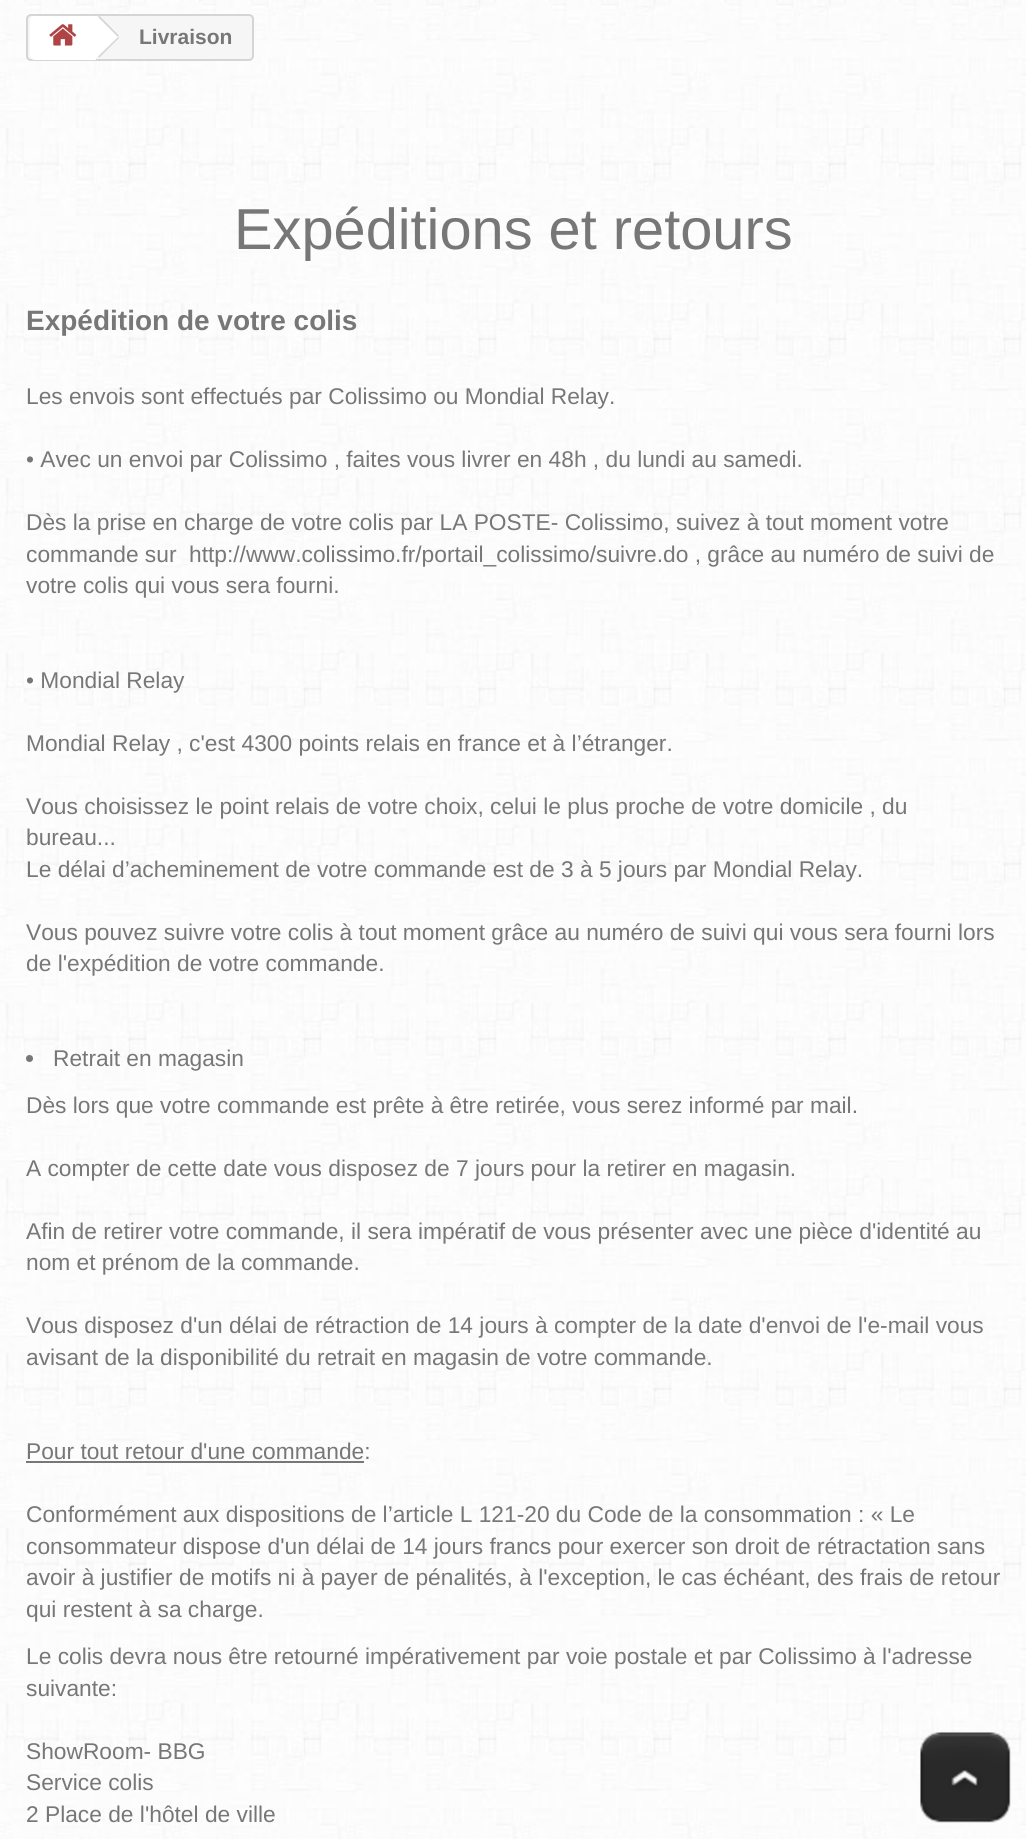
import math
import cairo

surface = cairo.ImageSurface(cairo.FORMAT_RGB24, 1026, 1839)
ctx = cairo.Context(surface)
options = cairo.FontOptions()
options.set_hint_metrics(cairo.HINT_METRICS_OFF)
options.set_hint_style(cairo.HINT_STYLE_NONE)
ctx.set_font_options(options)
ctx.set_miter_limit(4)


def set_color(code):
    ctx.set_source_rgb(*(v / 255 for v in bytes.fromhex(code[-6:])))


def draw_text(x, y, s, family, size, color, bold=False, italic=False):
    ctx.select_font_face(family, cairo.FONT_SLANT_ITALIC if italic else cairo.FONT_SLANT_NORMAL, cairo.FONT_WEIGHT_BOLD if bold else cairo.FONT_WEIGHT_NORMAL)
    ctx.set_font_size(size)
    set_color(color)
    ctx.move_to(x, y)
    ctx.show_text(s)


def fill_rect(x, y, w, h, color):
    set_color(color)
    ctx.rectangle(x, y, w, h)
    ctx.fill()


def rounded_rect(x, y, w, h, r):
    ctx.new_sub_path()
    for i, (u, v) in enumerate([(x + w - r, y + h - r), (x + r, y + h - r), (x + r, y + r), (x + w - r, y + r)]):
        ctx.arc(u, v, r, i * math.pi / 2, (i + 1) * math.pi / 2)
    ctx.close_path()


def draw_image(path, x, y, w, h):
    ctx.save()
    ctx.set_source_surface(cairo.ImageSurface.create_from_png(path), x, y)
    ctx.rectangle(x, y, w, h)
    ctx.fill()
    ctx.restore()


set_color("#ffffff")
ctx.paint()
draw_image("assets/img1.png", 0, 0, 1026, 1839)
set_color("#f6f6f6")
rounded_rect(27, 15, 226, 45, 4)
ctx.fill_preserve()
set_color("#d6d4d4")
ctx.stroke()
set_color("#ffffff")
ctx.new_path()
ctx.move_to(35, 16)
ctx.line_to(96, 16)
ctx.line_to(96, 60)
ctx.line_to(35, 60)
ctx.curve_to(32, 60, 30, 58, 30, 55)
ctx.line_to(30, 21)
ctx.curve_to(30, 18, 32, 16, 35, 16)
ctx.close_path()
ctx.fill()
draw_image("assets/img2.png", 49, 24, 28, 22)
ctx.new_path()
ctx.move_to(100, 17)
ctx.line_to(118, 34)
ctx.curve_to(119, 36, 119, 38, 118, 39)
ctx.line_to(100, 57)
ctx.curve_to(99, 58, 97, 58, 96, 57)
ctx.line_to(78, 39)
ctx.curve_to(77, 38, 77, 36, 78, 34)
ctx.line_to(96, 17)
ctx.curve_to(97, 16, 99, 16, 100, 17)
ctx.close_path()
ctx.fill()
set_color("#d6d4d4")
ctx.new_path()
ctx.move_to(99, 15.5)
ctx.line_to(119, 35.5)
ctx.line_to(118, 37)
ctx.line_to(98, 17)
ctx.close_path()
ctx.move_to(118, 37)
ctx.line_to(119, 38)
ctx.line_to(99, 58)
ctx.line_to(98, 56.5)
ctx.close_path()
ctx.fill()
draw_text(139, 44, "Livraison", "Liberation Sans", 21, "#777777", bold=True)
draw_text(234, 249, "Expéditions et retours", "Liberation Sans", 57.75, "#777777")
draw_text(26, 330, "Expédition de votre colis", "Liberation Sans", 28, "#777777", bold=True)
draw_text(26, 404, "Les envois sont effectués par Colissimo ou Mondial Relay.", "Liberation Sans", 22.75, "#777777")
draw_text(26, 467, "• Avec un envoi par Colissimo , faites vous livrer en 48h , du lundi au samedi.", "Liberation Sans", 22.75, "#777777")
draw_text(26, 530, "Dès la prise en charge de votre colis par LA POSTE- Colissimo, suivez à tout moment votre", "Liberation Sans", 22.75, "#777777")
draw_text(26, 562, "commande sur", "Liberation Sans", 22.75, "#777777")
draw_text(189, 562, "http://www.colissimo.fr/portail_colissimo/suivre.do , grâce au numéro de suivi de", "Liberation Sans", 22.75, "#777777")
draw_text(26, 593, "votre colis qui vous sera fourni.", "Liberation Sans", 22.75, "#777777")
draw_text(26, 688, "• Mondial Relay", "Liberation Sans", 22.75, "#777777")
draw_text(26, 751, "Mondial Relay , c'est 4300 points relais en france et à l’étranger.", "Liberation Sans", 22.75, "#777777")
draw_text(26, 814, "Vous choisissez le point relais de votre choix, celui le plus proche de votre domicile , du", "Liberation Sans", 22.75, "#777777")
draw_text(26, 845, "bureau...", "Liberation Sans", 22.75, "#777777")
draw_text(26, 877, "Le délai d’acheminement de votre commande est de 3 à 5 jours par Mondial Relay.", "Liberation Sans", 22.75, "#777777")
draw_text(26, 940, "Vous pouvez suivre votre colis à tout moment grâce au numéro de suivi qui vous sera fourni lors", "Liberation Sans", 22.75, "#777777")
draw_text(26, 971, "de l'expédition de votre commande.", "Liberation Sans", 22.75, "#777777")
ctx.new_path()
ctx.arc(29.5, 1058.5, 3.5, 0, 2 * math.pi)
ctx.fill()
draw_text(53, 1066, "Retrait en magasin", "Liberation Sans", 22.75, "#777777")
draw_text(26, 1113, "Dès lors que votre commande est prête à être retirée, vous serez informé par mail.", "Liberation Sans", 22.75, "#777777")
draw_text(26, 1176, "A compter de cette date vous disposez de 7 jours pour la retirer en magasin.", "Liberation Sans", 22.75, "#777777")
draw_text(26, 1239, "Afin de retirer votre commande, il sera impératif de vous présenter avec une pièce d'identité au", "Liberation Sans", 22.75, "#777777")
draw_text(26, 1270, "nom et prénom de la commande.", "Liberation Sans", 22.75, "#777777")
draw_text(26, 1333, "Vous disposez d'un délai de rétraction de 14 jours à compter de la date d'envoi de l'e-mail vous", "Liberation Sans", 22.75, "#777777")
draw_text(26, 1365, "avisant de la disponibilité du retrait en magasin de votre commande.", "Liberation Sans", 22.75, "#777777")
draw_text(26, 1459, "Pour tout retour d'une commande:", "Liberation Sans", 22.75, "#777777")
fill_rect(26, 1461, 338, 2, "#777777")
draw_text(26, 1522, "Conformément aux dispositions de l’article L 121-20 du Code de la consommation : « Le", "Liberation Sans", 22.75, "#777777")
draw_text(26, 1554, "consommateur dispose d'un délai de 14 jours francs pour exercer son droit de rétractation sans", "Liberation Sans", 22.75, "#777777")
draw_text(26, 1585, "avoir à justifier de motifs ni à payer de pénalités, à l'exception, le cas échéant, des frais de retour", "Liberation Sans", 22.75, "#777777")
draw_text(26, 1617, "qui restent à sa charge.", "Liberation Sans", 22.75, "#777777")
draw_text(26, 1664, "Le colis devra nous être retourné impérativement par voie postale et par Colissimo à l'adresse", "Liberation Sans", 22.75, "#777777")
draw_text(26, 1696, "suivante:", "Liberation Sans", 22.75, "#777777")
draw_text(26, 1759, "ShowRoom- BBG", "Liberation Sans", 22.75, "#777777")
draw_text(26, 1790, "Service colis", "Liberation Sans", 22.75, "#777777")
draw_text(26, 1822, "2 Place de l'hôtel de ville", "Liberation Sans", 22.75, "#777777")
draw_image("assets/img3.png", 920, 1732, 91, 91)
surface.write_to_png("output.png")
